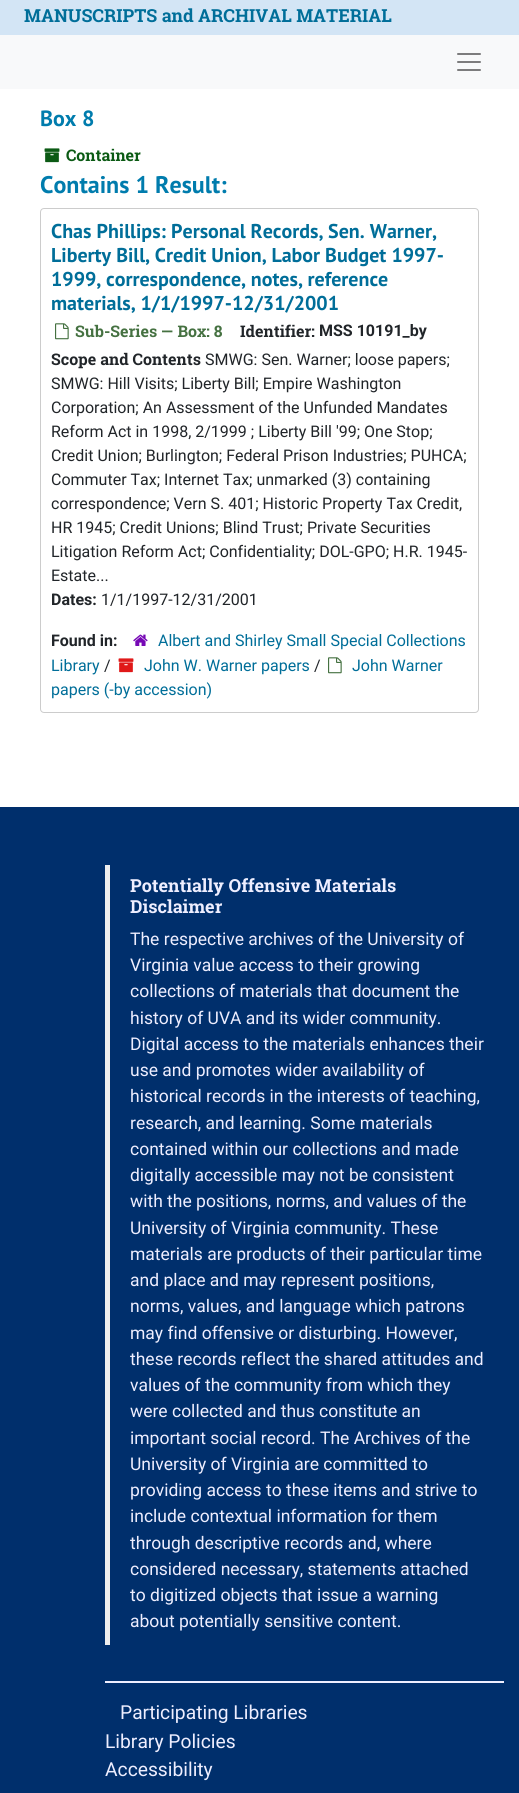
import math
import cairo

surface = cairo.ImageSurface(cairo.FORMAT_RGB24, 519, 1793)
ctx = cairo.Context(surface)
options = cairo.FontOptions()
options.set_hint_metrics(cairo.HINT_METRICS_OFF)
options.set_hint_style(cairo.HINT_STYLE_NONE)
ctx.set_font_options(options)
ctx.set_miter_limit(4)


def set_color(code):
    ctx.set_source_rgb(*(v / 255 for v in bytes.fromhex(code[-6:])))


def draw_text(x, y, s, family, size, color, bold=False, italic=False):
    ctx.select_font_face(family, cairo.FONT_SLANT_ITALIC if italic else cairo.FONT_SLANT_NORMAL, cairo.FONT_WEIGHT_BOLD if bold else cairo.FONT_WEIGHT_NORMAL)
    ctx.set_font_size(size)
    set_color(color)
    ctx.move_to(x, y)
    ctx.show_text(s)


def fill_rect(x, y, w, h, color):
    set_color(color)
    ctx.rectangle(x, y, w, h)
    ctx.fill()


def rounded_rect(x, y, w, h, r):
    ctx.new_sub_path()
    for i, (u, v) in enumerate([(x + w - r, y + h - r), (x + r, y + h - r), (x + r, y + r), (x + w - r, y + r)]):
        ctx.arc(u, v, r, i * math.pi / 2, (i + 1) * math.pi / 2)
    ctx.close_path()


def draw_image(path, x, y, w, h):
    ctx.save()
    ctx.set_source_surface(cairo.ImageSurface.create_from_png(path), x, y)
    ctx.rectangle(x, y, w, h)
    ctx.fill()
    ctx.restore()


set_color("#ffffff")
ctx.paint()
fill_rect(0, 0, 519, 35, "#d3e5f5")
draw_text(24, 22, "MANUSCRIPTS and ARCHIVAL MATERIAL", "Roboto Slab", 18, "#006e99", bold=True)
fill_rect(0, 35, 519, 54, "#f8f9fa")
draw_image("assets/img1.png", 457, 53, 24, 18)
draw_text(40, 126, "Box 8", "PT Sans", 22, "#007cad", bold=True)
draw_image("assets/img2.png", 44, 148, 16, 15)
draw_text(66, 161, "Container", "Roboto Slab", 16, "#0b5a14", bold=True)
draw_text(40, 193, "Contains 1 Result:", "PT Sans", 24, "#007cad", bold=True)
rounded_rect(40.5, 208.5, 438, 504, 3.5)
set_color("#cccccc")
ctx.set_line_width(1)
ctx.stroke()
draw_text(51, 238, "Chas Phillips: Personal Records, Sen. Warner,", "PT Sans", 20, "#006e99", bold=True)
draw_text(51, 262, "Liberty Bill, Credit Union, Labor Budget 1997-", "PT Sans", 20, "#006e99", bold=True)
draw_text(51, 286, "1999, correspondence, notes, reference", "PT Sans", 20, "#006e99", bold=True)
draw_text(51, 310, "materials, 1/1/1997-12/31/2001", "PT Sans", 20, "#006e99", bold=True)
draw_image("assets/img3.png", 55, 323, 14, 17)
draw_text(75, 337, "Sub-Series — Box: 8", "Roboto Slab", 16, "#457141", bold=True)
draw_text(240, 337, "Identifier:", "Roboto Slab", 16, "#212529", bold=True)
draw_text(319, 336, "MSS 10191_by", "Roboto", 16, "#212529", bold=True)
draw_text(51, 365, "Scope and Contents", "Roboto Slab", 16, "#212529", bold=True)
draw_text(205, 365, "SMWG: Sen. Warner; loose papers;", "Roboto", 16, "#212529")
draw_text(51, 389, "SMWG: Hill Visits; Liberty Bill; Empire Washington", "Roboto", 16, "#212529")
draw_text(51, 413, "Corporation; An Assessment of the Unfunded Mandates", "Roboto", 16, "#212529")
draw_text(51, 437, "Reform Act in 1998, 2/1999 ; Liberty Bill '99; One Stop;", "Roboto", 16, "#212529")
draw_text(51, 461, "Credit Union; Burlington; Federal Prison Industries; PUHCA;", "Roboto", 16, "#212529")
draw_text(51, 485, "Commuter Tax; Internet Tax; unmarked (3) containing", "Roboto", 16, "#212529")
draw_text(51, 509, "correspondence; Vern S. 401; Historic Property Tax Credit,", "Roboto", 16, "#212529")
draw_text(51, 533, "HR 1945; Credit Unions; Blind Trust; Private Securities", "Roboto", 16, "#212529")
draw_text(51, 557, "Litigation Reform Act; Confidentiality; DOL-GPO; H.R. 1945-", "Roboto", 16, "#212529")
draw_text(51, 581, "Estate...", "Roboto", 16, "#212529")
draw_text(51, 605, "Dates:", "Roboto", 16, "#212529", bold=True)
draw_text(101, 605, "1/1/1997-12/31/2001", "Roboto", 16, "#212529")
draw_text(51, 646, "Found in:", "Roboto", 16, "#212529", bold=True)
draw_image("assets/img4.png", 133, 634, 15, 12)
draw_text(158, 646, "Albert and Shirley Small Special Collections", "Roboto", 16, "#006e99")
draw_text(51, 671, "Library", "Roboto", 16, "#006e99")
draw_image("assets/img3.png", 328, 657, 14, 17)
draw_text(352, 671, "John Warner", "Roboto", 16, "#006e99")
draw_text(51, 695, "papers (-by accession)", "Roboto", 16, "#006e99")
draw_text(104, 671, "/", "Roboto", 16, "#212529")
draw_image("assets/img5.png", 118, 658, 16, 15)
draw_text(144, 671, "John W. Warner papers", "Roboto", 16, "#006e99")
draw_text(314, 671, "/", "Roboto", 16, "#212529")
fill_rect(0, 807, 519, 986, "#002f6c")
fill_rect(105, 865, 5, 780, "#eeeeee")
draw_text(130, 892, "Potentially Offensive Materials", "Roboto Slab", 18, "#eeeeff", bold=True)
draw_text(130, 913, "Disclaimer", "Roboto Slab", 18, "#eeeeff", bold=True)
draw_text(130, 945, "The respective archives of the University of", "Roboto", 17.5, "#eeeeff")
draw_text(130, 971, "Virginia value access to their growing", "Roboto", 17.5, "#eeeeff")
draw_text(130, 997, "collections of materials that document the", "Roboto", 17.5, "#eeeeff")
draw_text(130, 1024, "history of UVA and its wider community.", "Roboto", 17.5, "#eeeeff")
draw_text(130, 1050, "Digital access to the materials enhances their", "Roboto", 17.5, "#eeeeff")
draw_text(130, 1076, "use and promotes wider availability of", "Roboto", 17.5, "#eeeeff")
draw_text(130, 1102, "historical records in the interests of teaching,", "Roboto", 17.5, "#eeeeff")
draw_text(130, 1129, "research, and learning. Some materials", "Roboto", 17.5, "#eeeeff")
draw_text(130, 1155, "contained within our collections and made", "Roboto", 17.5, "#eeeeff")
draw_text(130, 1181, "digitally accessible may not be consistent", "Roboto", 17.5, "#eeeeff")
draw_text(130, 1207, "with the positions, norms, and values of the", "Roboto", 17.5, "#eeeeff")
draw_text(130, 1234, "University of Virginia community. These", "Roboto", 17.5, "#eeeeff")
draw_text(130, 1260, "materials are products of their particular time", "Roboto", 17.5, "#eeeeff")
draw_text(130, 1286, "and place and may represent positions,", "Roboto", 17.5, "#eeeeff")
draw_text(130, 1312, "norms, values, and language which patrons", "Roboto", 17.5, "#eeeeff")
draw_text(130, 1339, "may find offensive or disturbing. However,", "Roboto", 17.5, "#eeeeff")
draw_text(130, 1365, "these records reflect the shared attitudes and", "Roboto", 17.5, "#eeeeff")
draw_text(130, 1391, "values of the community from which they", "Roboto", 17.5, "#eeeeff")
draw_text(130, 1417, "were collected and thus constitute an", "Roboto", 17.5, "#eeeeff")
draw_text(130, 1444, "important social record. The Archives of the", "Roboto", 17.5, "#eeeeff")
draw_text(130, 1470, "University of Virginia are committed to", "Roboto", 17.5, "#eeeeff")
draw_text(130, 1496, "providing access to these items and strive to", "Roboto", 17.5, "#eeeeff")
draw_text(130, 1522, "include contextual information for them", "Roboto", 17.5, "#eeeeff")
draw_text(130, 1549, "through descriptive records and, where", "Roboto", 17.5, "#eeeeff")
draw_text(130, 1575, "considered necessary, statements attached", "Roboto", 17.5, "#eeeeff")
draw_text(130, 1601, "to digitized objects that issue a warning", "Roboto", 17.5, "#eeeeff")
draw_text(130, 1627, "about potentially sensitive content.", "Roboto", 17.5, "#eeeeff")
fill_rect(105, 1681, 399, 2, "#eeeeff")
draw_text(120, 1719, "Participating Libraries", "Roboto", 19.25, "#eeeeff")
draw_text(105, 1748, "Library Policies", "Roboto", 19.25, "#eeeeff")
draw_text(105, 1776, "Accessibility", "Roboto", 19.25, "#eeeeff")
surface.write_to_png("output.png")
